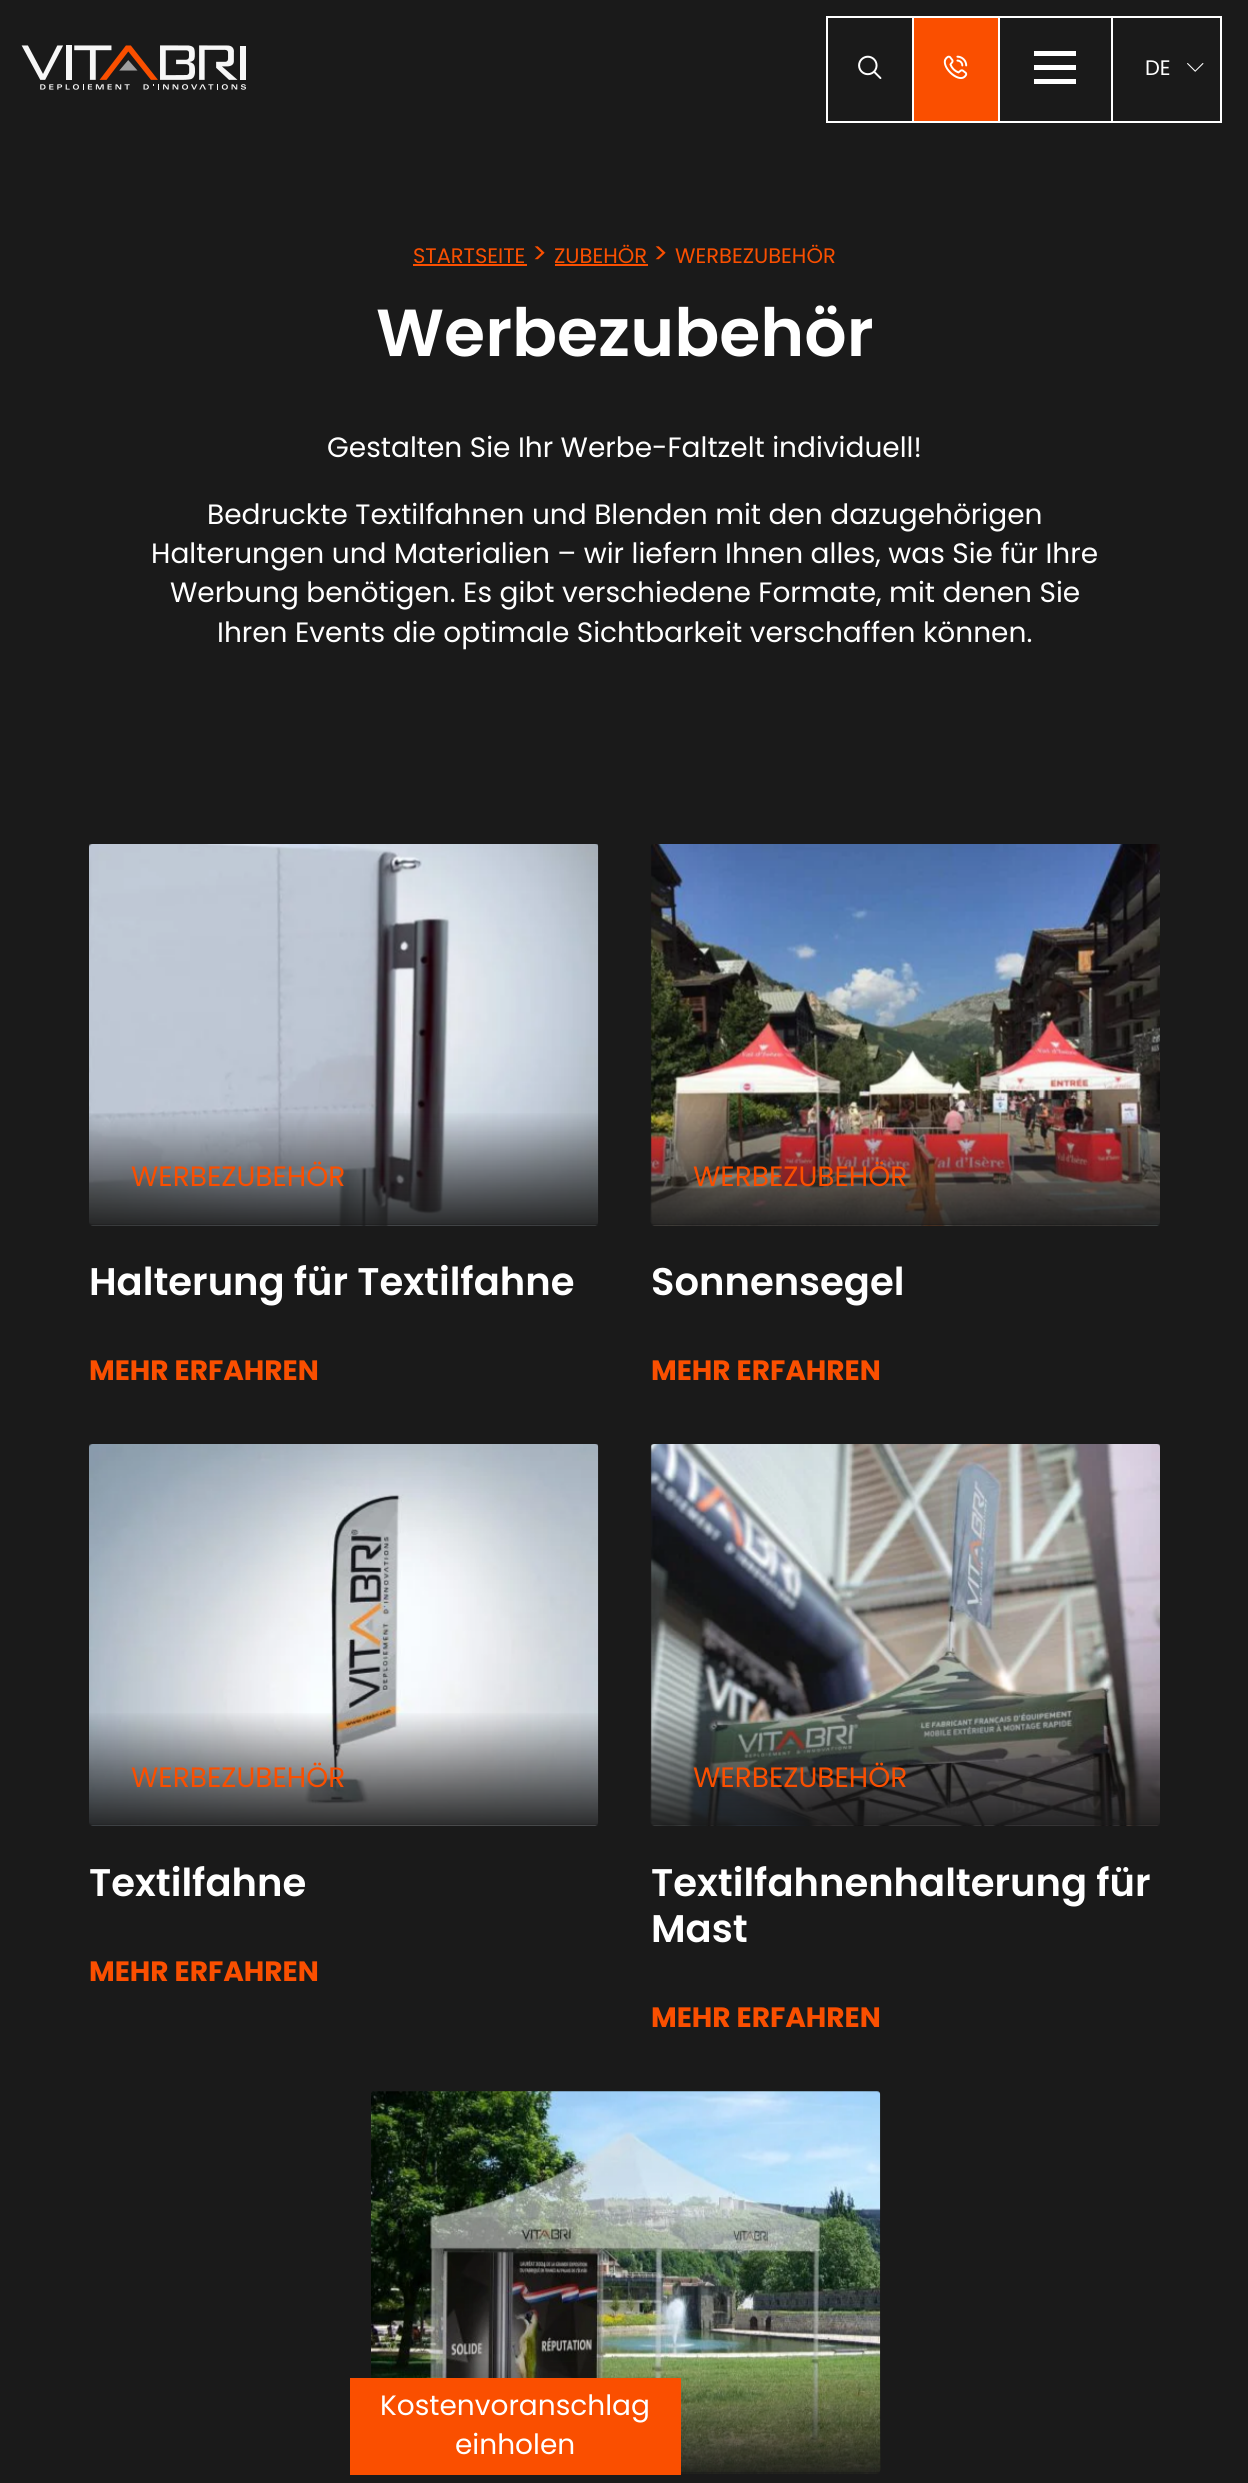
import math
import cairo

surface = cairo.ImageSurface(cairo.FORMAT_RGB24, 1248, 2483)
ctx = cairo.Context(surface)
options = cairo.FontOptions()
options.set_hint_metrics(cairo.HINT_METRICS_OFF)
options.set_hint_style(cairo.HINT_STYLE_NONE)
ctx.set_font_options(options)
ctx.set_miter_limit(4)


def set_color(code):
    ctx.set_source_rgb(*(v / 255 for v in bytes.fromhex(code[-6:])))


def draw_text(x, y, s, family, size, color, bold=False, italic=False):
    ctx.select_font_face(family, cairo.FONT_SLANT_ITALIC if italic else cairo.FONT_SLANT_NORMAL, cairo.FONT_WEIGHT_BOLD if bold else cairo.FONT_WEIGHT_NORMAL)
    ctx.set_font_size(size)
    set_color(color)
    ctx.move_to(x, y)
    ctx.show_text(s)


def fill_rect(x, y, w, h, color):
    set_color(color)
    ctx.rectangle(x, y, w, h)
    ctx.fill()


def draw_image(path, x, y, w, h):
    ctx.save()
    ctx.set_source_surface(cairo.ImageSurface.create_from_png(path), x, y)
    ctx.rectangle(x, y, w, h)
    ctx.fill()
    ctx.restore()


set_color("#1a1a1a")
ctx.paint()
draw_image("assets/img1.png", 21, 45, 225, 45)
fill_rect(826, 16, 285, 2, "#ffffff")
fill_rect(826, 121, 285, 2, "#ffffff")
fill_rect(826, 16, 2, 107, "#ffffff")
draw_image("assets/img2.png", 858, 55, 24, 24)
fill_rect(914, 18, 84, 103, "#fa4f00")
fill_rect(912, 16, 2, 107, "#ffffff")
draw_image("assets/img3.png", 943, 55, 25, 24)
fill_rect(998, 16, 2, 107, "#ffffff")
fill_rect(1034, 51, 42, 5, "#ffffff")
fill_rect(1034, 65, 42, 5, "#ffffff")
fill_rect(1034, 79, 42, 5, "#ffffff")
ctx.rectangle(1112, 17, 109, 105)
ctx.stroke()
draw_text(1145, 75, "DE", "Poppins", 21, "#ffffff")
draw_image("assets/img4.png", 1187, 63, 17, 9)
draw_text(413, 263, "STARTSEITE", "Poppins", 21, "#fa4f00")
fill_rect(413, 264, 114, 2, "#fa4f00")
draw_text(532, 263, ">", "Poppins", 28, "#fa4f00")
draw_text(554, 263, "ZUBEHÖR", "Poppins", 21, "#fa4f00")
fill_rect(555, 264, 93, 2, "#fa4f00")
draw_text(653, 263, ">", "Poppins", 28, "#fa4f00")
draw_text(675, 263, "WERBEZUBEHÖR", "Poppins", 21, "#fa4f00")
draw_text(376, 356, "Werbezubehör", "Poppins SemiBold", 66.5, "#ffffff")
draw_text(327, 457, "Gestalten Sie Ihr Werbe-Faltzelt individuell!", "Poppins", 28, "#ffffff")
draw_text(207, 524, "Bedruckte Textilfahnen und Blenden mit den dazugehörigen", "Poppins", 28, "#ffffff")
draw_text(151, 563, "Halterungen und Materialien – wir liefern Ihnen alles, was Sie für Ihre", "Poppins", 28, "#ffffff")
draw_text(170, 602, "Werbung benötigen. Es gibt verschiedene Formate, mit denen Sie", "Poppins", 28, "#ffffff")
draw_text(217, 642, "Ihren Events die optimale Sichtbarkeit verschaffen können.", "Poppins", 28, "#ffffff")
draw_image("assets/img5.png", 89, 844, 510, 382)
gradient = cairo.LinearGradient(344, 1225, 344, 844)
gradient.add_color_stop_rgba(0, 0.102, 0.102, 0.102, 0.9)
gradient.add_color_stop_rgba(0.3, 0.102, 0.102, 0.102, 0)
ctx.set_source(gradient)
ctx.rectangle(89, 1113, 510, 112)
ctx.fill()
draw_text(131, 1186, "WERBEZUBEHÖR", "Poppins", 28, "#fa4f00")
draw_text(89, 1295, "Halterung für Textilfahne", "Poppins SemiBold", 38.5, "#ffffff")
draw_text(89, 1380, "MEHR ERFAHREN", "Poppins", 28, "#fa4f00", bold=True)
draw_image("assets/img6.png", 650, 844, 510, 382)
gradient = cairo.LinearGradient(906, 1225, 906, 844)
gradient.add_color_stop_rgba(0, 0.102, 0.102, 0.102, 0.9)
gradient.add_color_stop_rgba(0.3, 0.102, 0.102, 0.102, 0)
ctx.set_source(gradient)
ctx.rectangle(651, 1113, 509, 112)
ctx.fill()
draw_text(693, 1186, "WERBEZUBEHÖR", "Poppins", 28, "#fa4f00")
draw_text(651, 1295, "Sonnensegel", "Poppins SemiBold", 38.5, "#ffffff")
draw_text(651, 1380, "MEHR ERFAHREN", "Poppins", 28, "#fa4f00", bold=True)
draw_image("assets/img7.png", 89, 1444, 510, 382)
gradient = cairo.LinearGradient(344, 1825, 344, 1444)
gradient.add_color_stop_rgba(0, 0.102, 0.102, 0.102, 0.9)
gradient.add_color_stop_rgba(0.3, 0.102, 0.102, 0.102, 0)
ctx.set_source(gradient)
ctx.rectangle(89, 1713, 510, 112)
ctx.fill()
draw_text(131, 1787, "WERBEZUBEHÖR", "Poppins", 28, "#fa4f00")
draw_text(89, 1896, "Textilfahne", "Poppins SemiBold", 38.5, "#ffffff")
draw_text(89, 1981, "MEHR ERFAHREN", "Poppins", 28, "#fa4f00", bold=True)
draw_image("assets/img8.png", 650, 1444, 510, 382)
gradient = cairo.LinearGradient(906, 1825, 906, 1444)
gradient.add_color_stop_rgba(0, 0.102, 0.102, 0.102, 0.9)
gradient.add_color_stop_rgba(0.3, 0.102, 0.102, 0.102, 0)
ctx.set_source(gradient)
ctx.rectangle(651, 1713, 509, 112)
ctx.fill()
draw_text(693, 1787, "WERBEZUBEHÖR", "Poppins", 28, "#fa4f00")
draw_text(651, 1896, "Textilfahnenhalterung für", "Poppins SemiBold", 38.5, "#ffffff")
draw_text(651, 1942, "Mast", "Poppins SemiBold", 38.5, "#ffffff")
draw_text(651, 2027, "MEHR ERFAHREN", "Poppins", 28, "#fa4f00", bold=True)
draw_image("assets/img9.png", 371, 2091, 510, 383)
gradient = cairo.LinearGradient(626, 2473, 626, 2091)
gradient.add_color_stop_rgba(0, 0.102, 0.102, 0.102, 0.9)
gradient.add_color_stop_rgba(0.3, 0.102, 0.102, 0.102, 0)
ctx.set_source(gradient)
ctx.rectangle(371, 2361, 509, 112)
ctx.fill()
fill_rect(350, 2378, 331, 97, "#fa4f00")
draw_text(380, 2415, "Kostenvoranschlag", "Poppins", 28, "#ffffff")
draw_text(455, 2454, "einholen", "Poppins", 28, "#ffffff")
surface.write_to_png("output.png")
